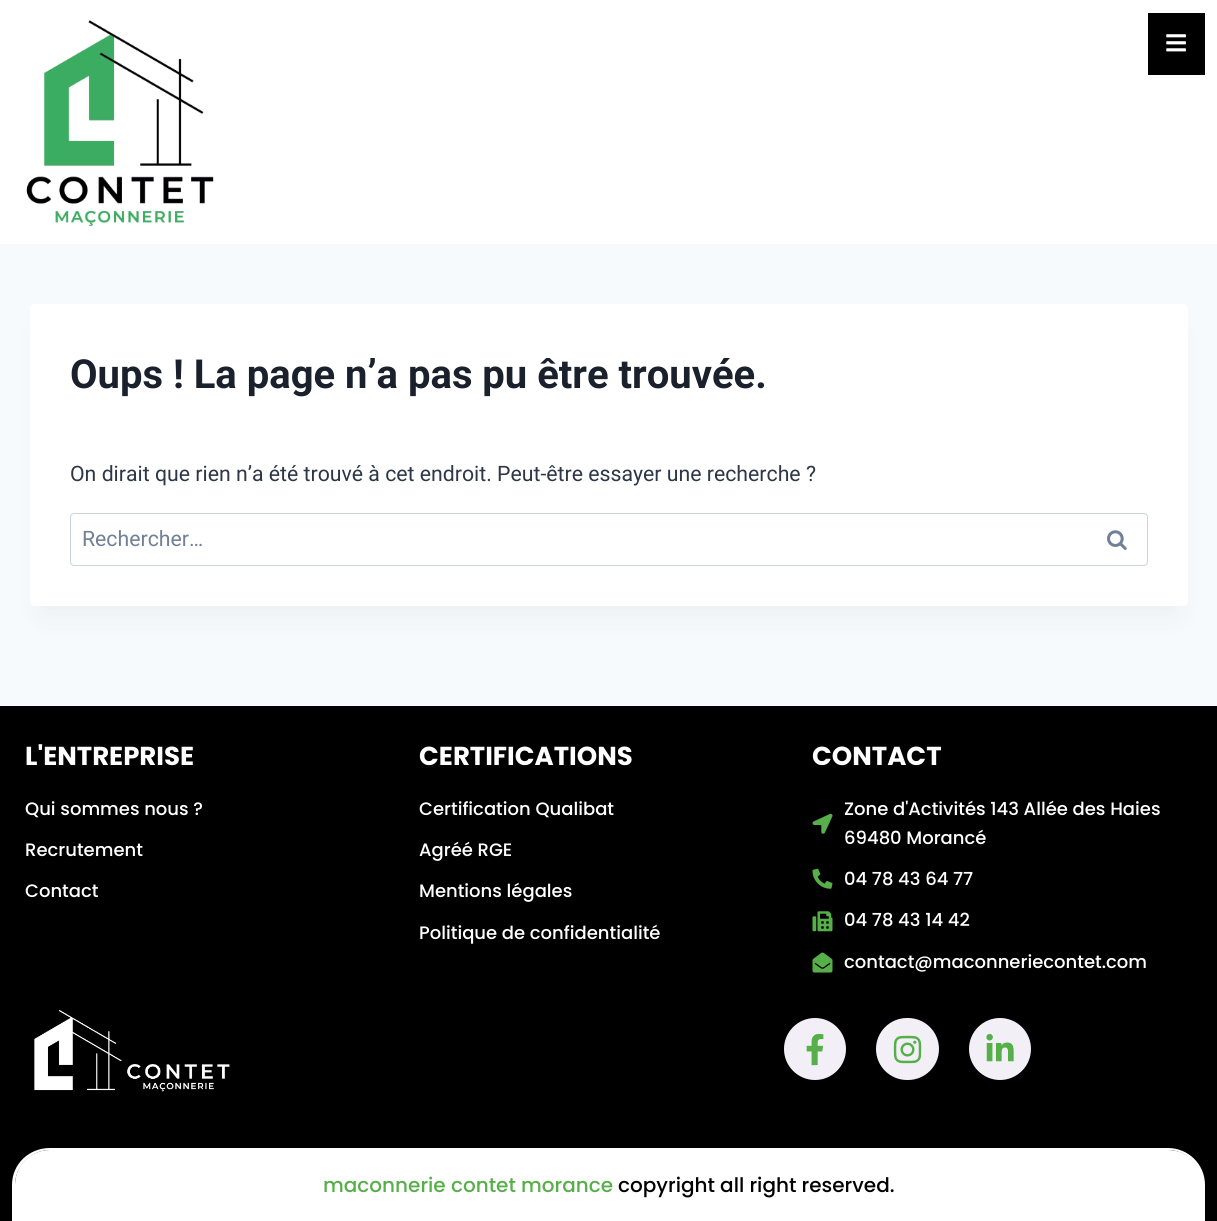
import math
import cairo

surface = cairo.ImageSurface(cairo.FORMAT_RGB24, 1217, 1221)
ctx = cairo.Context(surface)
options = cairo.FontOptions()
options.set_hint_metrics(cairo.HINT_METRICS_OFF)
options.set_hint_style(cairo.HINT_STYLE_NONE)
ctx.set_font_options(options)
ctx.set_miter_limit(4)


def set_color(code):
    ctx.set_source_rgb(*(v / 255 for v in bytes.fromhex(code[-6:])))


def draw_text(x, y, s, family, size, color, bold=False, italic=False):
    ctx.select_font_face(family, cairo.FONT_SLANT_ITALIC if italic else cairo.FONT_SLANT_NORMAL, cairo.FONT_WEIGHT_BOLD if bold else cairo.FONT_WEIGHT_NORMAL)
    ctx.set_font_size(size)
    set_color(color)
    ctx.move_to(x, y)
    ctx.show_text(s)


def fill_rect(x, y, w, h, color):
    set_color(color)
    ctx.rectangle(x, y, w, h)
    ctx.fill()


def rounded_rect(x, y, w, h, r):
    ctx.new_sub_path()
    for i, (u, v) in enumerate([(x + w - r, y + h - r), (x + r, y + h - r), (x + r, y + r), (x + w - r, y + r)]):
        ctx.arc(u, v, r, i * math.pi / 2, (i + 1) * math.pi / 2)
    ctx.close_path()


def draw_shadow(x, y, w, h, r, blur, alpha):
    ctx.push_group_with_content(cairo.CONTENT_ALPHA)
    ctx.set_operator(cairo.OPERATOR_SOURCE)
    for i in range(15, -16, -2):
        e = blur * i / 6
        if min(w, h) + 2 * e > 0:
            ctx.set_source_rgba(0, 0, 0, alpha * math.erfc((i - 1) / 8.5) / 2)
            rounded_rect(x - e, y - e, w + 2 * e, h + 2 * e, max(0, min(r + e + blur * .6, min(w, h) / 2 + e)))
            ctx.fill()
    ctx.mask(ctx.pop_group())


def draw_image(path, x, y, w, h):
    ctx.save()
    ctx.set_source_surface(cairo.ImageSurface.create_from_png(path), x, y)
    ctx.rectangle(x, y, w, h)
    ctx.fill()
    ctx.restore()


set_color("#f7fafc")
ctx.paint()
fill_rect(0, 0, 1217, 244, "#ffffff")
draw_image("assets/img1.png", 26, 20, 188, 207)
fill_rect(1148, 13, 57, 62, "#000000")
draw_image("assets/img2.png", 1166, 34, 20, 18)
set_color("#000000")
draw_shadow(43, 335, 1132, 278, 0, 15.5, 0.05)
set_color("#ffffff")
rounded_rect(30, 304, 1158, 302, 5)
ctx.fill()
draw_text(70, 388, "Oups ! La page n’a pas pu être trouvée.", "Roboto", 40, "#1a202c", bold=True)
draw_text(70, 481, "On dirait que rien n’a été trouvé à cet endroit. Peut-être essayer une recherche ?", "Roboto", 21.25, "#2d3748")
rounded_rect(70.5, 513.5, 1077, 52, 3.5)
set_color("#cbd5e0")
ctx.set_line_width(1)
ctx.stroke()
draw_text(82, 546, "Rechercher…", "Roboto", 21.25, "#718096")
draw_image("assets/img3.png", 1107, 530, 20, 20)
fill_rect(0, 706, 1217, 515, "#000000")
draw_text(25, 765, "L'ENTREPRISE", "Poppins", 26, "#ffffff", bold=True)
draw_text(25, 815, "Qui sommes nous ?", "Poppins Medium", 18, "#ffffff")
draw_text(25, 856, "Recrutement", "Poppins Medium", 18, "#ffffff")
draw_text(25, 897, "Contact", "Poppins Medium", 18, "#ffffff")
draw_text(419, 765, "CERTIFICATIONS", "Poppins", 26, "#ffffff", bold=True)
draw_text(419, 815, "Certification Qualibat", "Poppins Medium", 18, "#ffffff")
draw_text(419, 856, "Agréé RGE", "Poppins Medium", 18, "#ffffff")
draw_text(419, 897, "Mentions légales", "Poppins Medium", 18, "#ffffff")
draw_text(419, 939, "Politique de confidentialité", "Poppins Medium", 18, "#ffffff")
draw_text(812, 765, "CONTACT", "Poppins", 26, "#ffffff", bold=True)
draw_image("assets/img4.png", 812, 813, 21, 21)
draw_text(844, 815, "Zone d'Activités 143 Allée des Haies", "Poppins Medium", 18, "#ffffff")
draw_text(844, 844, "69480 Morancé", "Poppins Medium", 18, "#ffffff")
draw_image("assets/img5.png", 812, 868, 21, 21)
draw_text(844, 885, "04 78 43 64 77", "Poppins Medium", 18, "#ffffff")
draw_image("assets/img6.png", 812, 911, 21, 21)
draw_text(844, 926, "04 78 43 14 42", "Poppins Medium", 18, "#ffffff")
draw_image("assets/img7.png", 812, 952, 21, 21)
draw_text(844, 968, "contact@maconneriecontet.com", "Poppins Medium", 18, "#ffffff")
draw_image("assets/img8.png", 34, 1009, 196, 83)
set_color("#f2f0f6")
ctx.arc(815, 1049, 31, 0, 2 * math.pi)
ctx.fill()
draw_image("assets/img9.png", 806, 1033, 18, 33)
rounded_rect(876, 1018, 63, 62, 31)
ctx.fill()
draw_image("assets/img10.png", 893, 1035, 29, 29)
ctx.arc(1000, 1049, 31, 0, 2 * math.pi)
ctx.fill()
draw_image("assets/img11.png", 986, 1033, 28, 29)
set_color("#ffffff")
ctx.new_path()
ctx.move_to(50, 1150)
ctx.line_to(1168, 1150)
ctx.curve_to(1187.5, 1150, 1203, 1165.5, 1203, 1185)
ctx.line_to(1203, 1221)
ctx.line_to(15, 1221)
ctx.line_to(15, 1185)
ctx.curve_to(15, 1165.5, 30.5, 1150, 50, 1150)
ctx.close_path()
ctx.fill()
ctx.set_fill_rule(cairo.FILL_RULE_EVEN_ODD)
ctx.new_path()
ctx.move_to(50, 1148)
ctx.line_to(1168, 1148)
ctx.curve_to(1188, 1148, 1205, 1164, 1205, 1185)
ctx.line_to(1205, 1221)
ctx.line_to(12, 1221)
ctx.line_to(12, 1185)
ctx.curve_to(12, 1164, 29, 1148, 50, 1148)
ctx.close_path()
ctx.move_to(50, 1150)
ctx.line_to(1168, 1150)
ctx.curve_to(1187, 1150, 1202, 1166, 1202, 1185)
ctx.line_to(1202, 1221)
ctx.line_to(15, 1221)
ctx.line_to(15, 1185)
ctx.curve_to(15, 1166, 31, 1150, 50, 1150)
ctx.close_path()
ctx.fill()
draw_text(323, 1192, "maconnerie contet morance", "Poppins Medium", 20, "#57af49")
draw_text(618, 1192, "copyright all right reserved.", "Poppins Medium", 20, "#000000")
surface.write_to_png("output.png")
